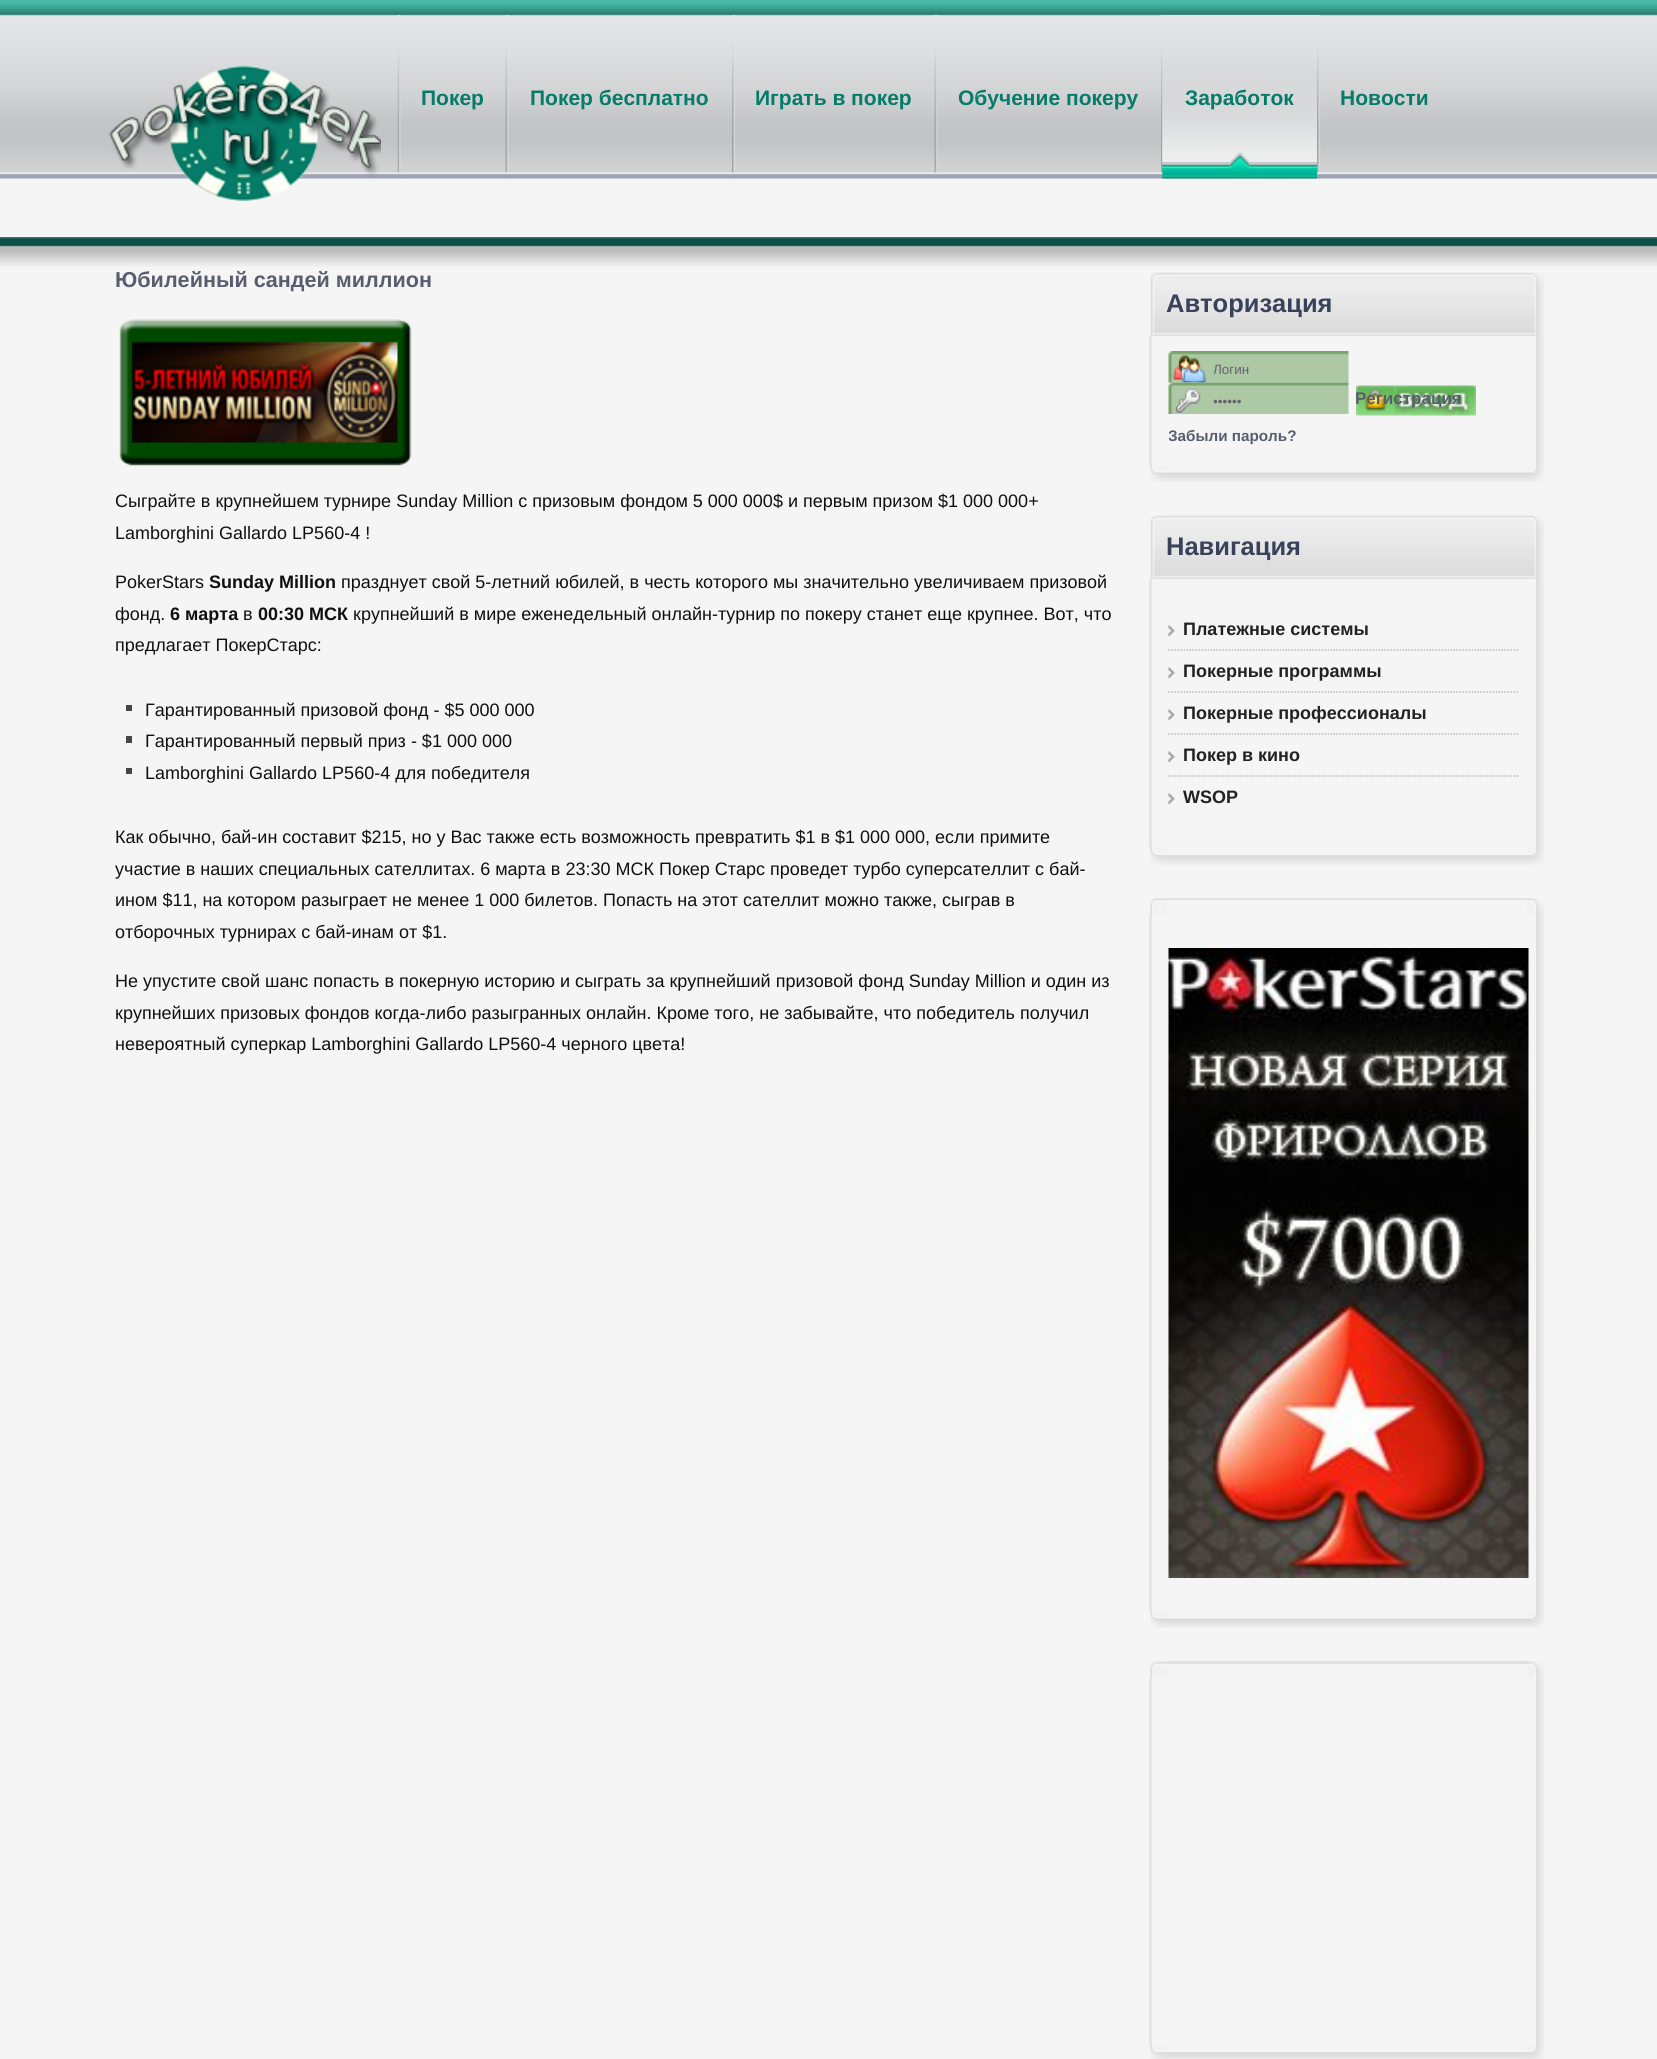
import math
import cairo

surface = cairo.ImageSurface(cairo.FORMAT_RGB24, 1657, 2059)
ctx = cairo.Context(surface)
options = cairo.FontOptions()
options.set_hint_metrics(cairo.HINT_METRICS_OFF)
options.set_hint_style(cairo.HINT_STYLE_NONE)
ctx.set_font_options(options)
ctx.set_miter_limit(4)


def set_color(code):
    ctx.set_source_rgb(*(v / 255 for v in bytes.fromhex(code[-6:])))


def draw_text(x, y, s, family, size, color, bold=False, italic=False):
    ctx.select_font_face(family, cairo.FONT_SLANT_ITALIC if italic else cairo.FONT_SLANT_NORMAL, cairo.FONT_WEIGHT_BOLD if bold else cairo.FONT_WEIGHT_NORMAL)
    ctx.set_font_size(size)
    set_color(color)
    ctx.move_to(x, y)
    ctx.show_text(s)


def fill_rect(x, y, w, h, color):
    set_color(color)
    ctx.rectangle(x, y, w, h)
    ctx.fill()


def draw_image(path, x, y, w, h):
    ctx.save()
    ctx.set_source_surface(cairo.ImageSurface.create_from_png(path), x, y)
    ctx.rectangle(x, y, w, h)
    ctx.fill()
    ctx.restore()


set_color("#f5f5f5")
ctx.paint()
draw_image("assets/img1.png", 0, 0, 1657, 179)
draw_image("assets/img2.png", 109, 66, 272, 135)
draw_image("assets/img3.png", 397, 15, 4, 164)
draw_text(421, 105, "Покер", "Liberation Sans", 21, "#057b68", bold=True)
draw_image("assets/img4.png", 505, 15, 4, 164)
draw_text(530, 105, "Покер бесплатно", "Liberation Sans", 21, "#057b68", bold=True)
draw_image("assets/img5.png", 732, 15, 4, 164)
draw_text(755, 105, "Играть в покер", "Liberation Sans", 21, "#057b68", bold=True)
draw_image("assets/img6.png", 934, 15, 4, 164)
draw_text(958, 105, "Обучение покеру", "Liberation Sans", 21, "#057b68", bold=True)
draw_image("assets/img7.png", 1161, 15, 4, 164)
draw_image("assets/img8.png", 1162, 15, 155, 164)
draw_image("assets/img9.png", 1162, 84, 155, 95)
draw_text(1185, 105, "Заработок", "Liberation Sans", 21, "#057b68", bold=True)
draw_image("assets/img5.png", 1317, 15, 4, 164)
draw_text(1340, 105, "Новости", "Liberation Sans", 21, "#057b68", bold=True)
draw_image("assets/img10.png", 0, 237, 1657, 30)
draw_text(115, 287, "Юбилейный сандей миллион", "Liberation Sans", 21.6, "#585e6e", bold=True)
draw_image("assets/img11.png", 119, 319, 293, 147)
draw_text(115, 507, "Сыграйте в крупнейшем турнире Sunday Million с призовым фондом 5 000 000$ и первым призом $1 000 000+", "Liberation Sans", 18, "#101010")
draw_text(115, 539, "Lamborghini Gallardo LP560-4 !", "Liberation Sans", 18, "#101010")
draw_text(115, 588, "PokerStars", "Liberation Sans", 18, "#101010")
draw_text(209, 588, "Sunday Million", "Liberation Sans", 18, "#101010", bold=True)
draw_text(341, 588, "празднует свой 5-летний юбилей, в честь которого мы значительно увеличиваем призовой", "Liberation Sans", 18, "#101010")
draw_text(115, 620, "фонд.", "Liberation Sans", 18, "#101010")
draw_text(170, 620, "6 марта", "Liberation Sans", 18, "#101010", bold=True)
draw_text(243, 620, "в", "Liberation Sans", 18, "#101010")
draw_text(258, 620, "00:30 МСК", "Liberation Sans", 18, "#101010", bold=True)
draw_text(353, 620, "крупнейший в мире еженедельный онлайн-турнир по покеру станет еще крупнее. Вот, что", "Liberation Sans", 18, "#101010")
draw_text(115, 651, "предлагает ПокерСтарс:", "Liberation Sans", 18, "#101010")
fill_rect(126, 705, 6, 6, "#464646")
draw_text(145, 716, "Гарантированный призовой фонд - $5 000 000", "Liberation Sans", 18, "#101010")
fill_rect(126, 736, 6, 7, "#464646")
draw_text(145, 747, "Гарантированный первый приз - $1 000 000", "Liberation Sans", 18, "#101010")
fill_rect(126, 768, 6, 6, "#464646")
draw_text(145, 779, "Lamborghini Gallardo LP560-4 для победителя", "Liberation Sans", 18, "#101010")
draw_text(115, 843, "Как обычно, бай-ин составит $215, но у Вас также есть возможность превратить $1 в $1 000 000, если примите", "Liberation Sans", 18, "#101010")
draw_text(115, 875, "участие в наших специальных сателлитах. 6 марта в 23:30 МСК Покер Старс проведет турбо суперсателлит с бай-", "Liberation Sans", 18, "#101010")
draw_text(115, 906, "ином $11, на котором разыграет не менее 1 000 билетов. Попасть на этот сателлит можно также, сыграв в", "Liberation Sans", 18, "#101010")
draw_text(115, 938, "отборочных турнирах с бай-инам от $1.", "Liberation Sans", 18, "#101010")
draw_text(115, 987, "Не упустите свой шанс попасть в покерную историю и сыграть за крупнейший призовой фонд Sunday Million и один из", "Liberation Sans", 18, "#101010")
draw_text(115, 1019, "крупнейших призовых фондов когда-либо разыгранных онлайн. Кроме того, не забывайте, что победитель получил", "Liberation Sans", 18, "#101010")
draw_text(115, 1050, "невероятный суперкар Lamborghini Gallardo LP560-4 черного цвета!", "Liberation Sans", 18, "#101010")
draw_image("assets/img12.png", 1150, 272, 19, 64)
draw_image("assets/img13.png", 1167, 272, 377, 64)
draw_text(1166, 312, "Авторизация", "Liberation Sans", 25.5, "#39425a", bold=True)
fill_rect(1149, 336, 3, 129, "#e5e5e5")
draw_image("assets/img14.png", 1536, 336, 8, 129)
draw_image("assets/img15.png", 1168, 351, 181, 32)
ctx.save()
ctx.rectangle(1214, 363, 135, 15)
ctx.clip()
draw_text(1213, 374, "Логин", "Liberation Sans", 13.5, "#646464")
ctx.restore()
draw_image("assets/img16.png", 1168, 382, 181, 32)
ctx.save()
ctx.rectangle(1214, 395, 135, 15)
ctx.clip()
draw_text(1213, 406, "••••••", "Liberation Sans", 13.5, "#646464")
ctx.restore()
ctx.save()
ctx.rectangle(1169, 420, 180, 30)
ctx.clip()
draw_text(1168, 441, "Забыли пароль?", "Liberation Sans", 15.25, "#585e6e", bold=True)
ctx.restore()
draw_image("assets/img17.png", 1356, 385, 120, 31)
draw_text(1355, 404, "Регистрация", "Liberation Sans", 17, "#585e6e", bold=True)
draw_image("assets/img18.png", 1167, 472, 360, 10)
draw_image("assets/img19.png", 1150, 465, 17, 17)
draw_image("assets/img20.png", 1527, 465, 17, 17)
draw_image("assets/img12.png", 1150, 515, 19, 64)
draw_image("assets/img13.png", 1167, 515, 377, 64)
draw_text(1166, 555, "Навигация", "Liberation Sans", 25.5, "#39425a", bold=True)
fill_rect(1149, 579, 3, 269, "#e5e5e5")
draw_image("assets/img21.png", 1536, 579, 8, 269)
ctx.new_path()
ctx.move_to(1168.5, 650)
ctx.line_to(1519.5, 650)
set_color("#b8b8b8")
ctx.set_line_width(1.5)
ctx.set_dash([1.5, 1.5])
ctx.stroke()
draw_image("assets/img22.png", 1168, 625, 7, 12)
draw_text(1183, 635, "Платежные системы", "Liberation Sans", 18, "#222222", bold=True)
ctx.new_path()
ctx.move_to(1168.5, 692)
ctx.line_to(1519.5, 692)
set_color("#b8b8b8")
ctx.stroke()
draw_image("assets/img22.png", 1168, 667, 7, 12)
draw_text(1183, 677, "Покерные программы", "Liberation Sans", 18, "#222222", bold=True)
ctx.new_path()
ctx.move_to(1168.5, 734)
ctx.line_to(1519.5, 734)
set_color("#b8b8b8")
ctx.stroke()
draw_image("assets/img22.png", 1168, 709, 7, 12)
draw_text(1183, 719, "Покерные профессионалы", "Liberation Sans", 18, "#222222", bold=True)
ctx.new_path()
ctx.move_to(1168.5, 776)
ctx.line_to(1519.5, 776)
set_color("#b8b8b8")
ctx.stroke()
draw_image("assets/img22.png", 1168, 751, 7, 12)
draw_text(1183, 761, "Покер в кино", "Liberation Sans", 18, "#222222", bold=True)
draw_image("assets/img22.png", 1168, 793, 7, 12)
draw_text(1183, 803, "WSOP", "Liberation Sans", 18, "#222222", bold=True)
draw_image("assets/img23.png", 1167, 855, 360, 10)
draw_image("assets/img24.png", 1150, 847, 17, 18)
draw_image("assets/img25.png", 1527, 847, 17, 18)
draw_image("assets/img26.png", 1167, 898, 360, 2)
draw_image("assets/img27.png", 1150, 898, 17, 17)
draw_image("assets/img28.png", 1527, 898, 17, 17)
fill_rect(1149, 915, 3, 696, "#e5e5e5")
draw_image("assets/img29.png", 1536, 915, 8, 696)
draw_image("assets/img30.png", 1168, 948, 361, 630)
draw_image("assets/img18.png", 1167, 1618, 360, 10)
draw_image("assets/img19.png", 1150, 1611, 17, 17)
draw_image("assets/img20.png", 1527, 1611, 17, 17)
fill_rect(1167, 1661, 360, 3, "#dfdfdf")
fill_rect(1149, 1678, 3, 367, "#e5e5e5")
draw_image("assets/img31.png", 1150, 1661, 17, 18)
draw_image("assets/img33.png", 1536, 1678, 8, 367)
draw_image("assets/img32.png", 1527, 1661, 17, 18)
draw_image("assets/img34.png", 1167, 2052, 360, 7)
draw_image("assets/img35.png", 1150, 2044, 17, 15)
draw_image("assets/img36.png", 1527, 2044, 17, 15)
surface.write_to_png("output.png")
